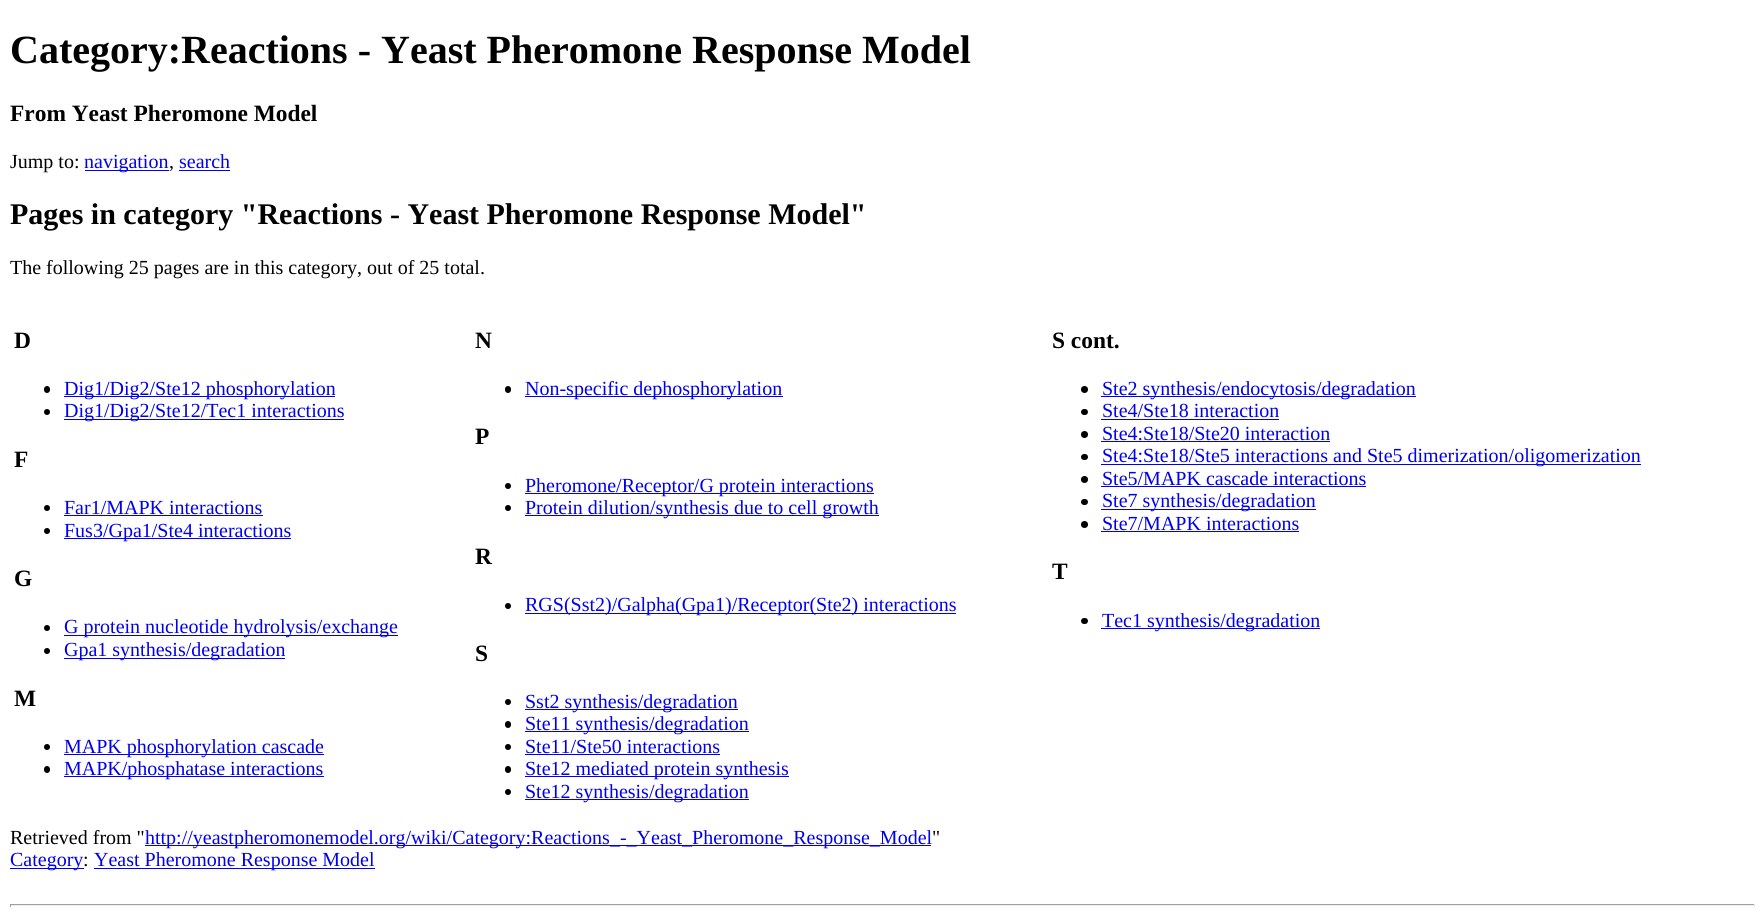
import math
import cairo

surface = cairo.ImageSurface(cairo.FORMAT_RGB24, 1764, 919)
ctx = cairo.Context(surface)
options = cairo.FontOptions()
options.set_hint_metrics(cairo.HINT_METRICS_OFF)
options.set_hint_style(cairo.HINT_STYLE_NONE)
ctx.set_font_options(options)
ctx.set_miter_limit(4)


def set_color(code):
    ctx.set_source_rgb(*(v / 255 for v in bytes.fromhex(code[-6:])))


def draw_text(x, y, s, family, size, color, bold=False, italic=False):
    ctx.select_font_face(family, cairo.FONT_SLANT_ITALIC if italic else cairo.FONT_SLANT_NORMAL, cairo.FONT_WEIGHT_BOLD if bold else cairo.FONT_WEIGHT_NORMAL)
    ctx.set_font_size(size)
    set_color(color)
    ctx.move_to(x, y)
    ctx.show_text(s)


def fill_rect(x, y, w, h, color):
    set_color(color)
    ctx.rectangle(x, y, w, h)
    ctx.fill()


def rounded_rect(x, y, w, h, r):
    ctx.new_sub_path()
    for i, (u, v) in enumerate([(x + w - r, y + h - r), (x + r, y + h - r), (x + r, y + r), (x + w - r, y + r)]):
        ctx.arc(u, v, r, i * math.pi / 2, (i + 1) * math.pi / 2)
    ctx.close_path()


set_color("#ffffff")
ctx.paint()
draw_text(10, 63, "Category:Reactions - Yeast Pheromone Response Model", "Liberation Serif", 40, "#000000", bold=True)
draw_text(10, 121, "From Yeast Pheromone Model", "Liberation Serif", 23.4, "#000000", bold=True)
draw_text(10, 168, "Jump to:", "Liberation Serif", 20, "#000000")
fill_rect(85, 170, 84, 1, "#0000ee")
draw_text(84, 168, "navigation", "Liberation Serif", 20, "#0000ee")
draw_text(169, 168, ",", "Liberation Serif", 20, "#000000")
draw_text(179, 168, "search", "Liberation Serif", 20, "#0000ee")
fill_rect(179, 170, 51, 1, "#0000ee")
draw_text(10, 224, "Pages in category \"Reactions - Yeast Pheromone Response Model\"", "Liberation Serif", 30, "#000000", bold=True)
draw_text(10, 274, "The following 25 pages are in this category, out of 25 total.", "Liberation Serif", 20, "#000000")
draw_text(14, 348, "D", "Liberation Serif", 23.4, "#000000", bold=True)
rounded_rect(44, 386, 6, 7, 3)
ctx.fill()
fill_rect(64, 396, 271, 1, "#0000ee")
draw_text(64, 395, "Dig1/Dig2/Ste12 phosphorylation", "Liberation Serif", 20, "#0000ee")
set_color("#000000")
ctx.new_path()
ctx.arc(47, 412, 3, 0, 2 * math.pi)
ctx.fill()
fill_rect(64, 419, 280, 1, "#0000ee")
draw_text(64, 417, "Dig1/Dig2/Ste12/Tec1 interactions", "Liberation Serif", 20, "#0000ee")
draw_text(14, 467, "F", "Liberation Serif", 23.4, "#000000", bold=True)
ctx.new_path()
ctx.arc(47, 508, 3, 0, 2 * math.pi)
ctx.fill()
draw_text(64, 514, "Far1/MAPK interactions", "Liberation Serif", 20, "#0000ee")
fill_rect(64, 515, 199, 1, "#0000ee")
set_color("#000000")
ctx.new_path()
ctx.arc(47, 531, 3, 0, 2 * math.pi)
ctx.fill()
fill_rect(64, 538, 227, 1, "#0000ee")
draw_text(64, 537, "Fus3/Gpa1/Ste4 interactions", "Liberation Serif", 20, "#0000ee")
draw_text(14, 586, "G", "Liberation Serif", 23.4, "#000000", bold=True)
ctx.new_path()
ctx.arc(47, 628, 3, 0, 2 * math.pi)
ctx.fill()
fill_rect(64, 635, 334, 1, "#0000ee")
draw_text(64, 633, "G protein nucleotide hydrolysis/exchange", "Liberation Serif", 20, "#0000ee")
set_color("#000000")
ctx.new_path()
ctx.arc(47, 651, 3, 0, 2 * math.pi)
ctx.fill()
fill_rect(64, 658, 221, 1, "#0000ee")
draw_text(64, 656, "Gpa1 synthesis/degradation", "Liberation Serif", 20, "#0000ee")
draw_text(14, 706, "M", "Liberation Serif", 23.4, "#000000", bold=True)
ctx.new_path()
ctx.arc(47, 747, 3, 0, 2 * math.pi)
ctx.fill()
fill_rect(64, 754, 260, 1, "#0000ee")
draw_text(64, 753, "MAPK phosphorylation cascade", "Liberation Serif", 20, "#0000ee")
set_color("#000000")
rounded_rect(44, 766, 6, 7, 3)
ctx.fill()
fill_rect(64, 776, 260, 1, "#0000ee")
draw_text(64, 775, "MAPK/phosphatase interactions", "Liberation Serif", 20, "#0000ee")
draw_text(475, 348, "N", "Liberation Serif", 23.4, "#000000", bold=True)
rounded_rect(505, 386, 6, 7, 3)
ctx.fill()
fill_rect(525, 396, 258, 1, "#0000ee")
draw_text(525, 395, "Non-specific dephosphorylation", "Liberation Serif", 20, "#0000ee")
draw_text(475, 444, "P", "Liberation Serif", 23.4, "#000000", bold=True)
ctx.new_path()
ctx.arc(508, 486, 3, 0, 2 * math.pi)
ctx.fill()
fill_rect(525, 493, 349, 1, "#0000ee")
draw_text(525, 492, "Pheromone/Receptor/G protein interactions", "Liberation Serif", 20, "#0000ee")
set_color("#000000")
ctx.new_path()
ctx.arc(508, 508, 3, 0, 2 * math.pi)
ctx.fill()
fill_rect(525, 515, 354, 1, "#0000ee")
draw_text(525, 514, "Protein dilution/synthesis due to cell growth", "Liberation Serif", 20, "#0000ee")
draw_text(475, 564, "R", "Liberation Serif", 23.4, "#000000", bold=True)
ctx.new_path()
ctx.arc(508, 606, 3, 0, 2 * math.pi)
ctx.fill()
fill_rect(525, 613, 431, 1, "#0000ee")
draw_text(525, 611, "RGS(Sst2)/Galpha(Gpa1)/Receptor(Ste2) interactions", "Liberation Serif", 20, "#0000ee")
draw_text(475, 661, "S", "Liberation Serif", 23.4, "#000000", bold=True)
ctx.new_path()
ctx.arc(508, 702, 3, 0, 2 * math.pi)
ctx.fill()
fill_rect(525, 709, 213, 1, "#0000ee")
draw_text(525, 708, "Sst2 synthesis/degradation", "Liberation Serif", 20, "#0000ee")
set_color("#000000")
rounded_rect(505, 721, 6, 7, 3)
ctx.fill()
fill_rect(525, 731, 224, 1, "#0000ee")
draw_text(525, 730, "Ste11 synthesis/degradation", "Liberation Serif", 20, "#0000ee")
set_color("#000000")
ctx.new_path()
ctx.arc(508, 747, 3, 0, 2 * math.pi)
ctx.fill()
draw_text(525, 753, "Ste11/Ste50 interactions", "Liberation Serif", 20, "#0000ee")
fill_rect(525, 754, 195, 1, "#0000ee")
set_color("#000000")
rounded_rect(505, 766, 6, 7, 3)
ctx.fill()
fill_rect(525, 776, 264, 1, "#0000ee")
draw_text(525, 775, "Ste12 mediated protein synthesis", "Liberation Serif", 20, "#0000ee")
set_color("#000000")
ctx.new_path()
ctx.arc(508, 792, 3, 0, 2 * math.pi)
ctx.fill()
fill_rect(525, 799, 224, 1, "#0000ee")
draw_text(525, 798, "Ste12 synthesis/degradation", "Liberation Serif", 20, "#0000ee")
draw_text(1052, 348, "S cont.", "Liberation Serif", 23.4, "#000000", bold=True)
ctx.new_path()
ctx.arc(1084.5, 389.5, 3.5, 0, 2 * math.pi)
ctx.fill()
fill_rect(1101, 396, 315, 1, "#0000ee")
draw_text(1102, 395, "Ste2 synthesis/endocytosis/degradation", "Liberation Serif", 20, "#0000ee")
set_color("#000000")
rounded_rect(1081, 409, 7, 6, 3)
ctx.fill()
draw_text(1102, 417, "Ste4/Ste18 interaction", "Liberation Serif", 20, "#0000ee")
fill_rect(1101, 419, 178, 1, "#0000ee")
set_color("#000000")
ctx.new_path()
ctx.arc(1084.5, 434.5, 3.5, 0, 2 * math.pi)
ctx.fill()
draw_text(1102, 440, "Ste4:Ste18/Ste20 interaction", "Liberation Serif", 20, "#0000ee")
fill_rect(1101, 441, 229, 1, "#0000ee")
set_color("#000000")
rounded_rect(1081, 454, 7, 6, 3)
ctx.fill()
fill_rect(1101, 464, 540, 1, "#0000ee")
draw_text(1102, 462, "Ste4:Ste18/Ste5 interactions and Ste5 dimerization/oligomerization", "Liberation Serif", 20, "#0000ee")
set_color("#000000")
ctx.new_path()
ctx.arc(1084.5, 479.5, 3.5, 0, 2 * math.pi)
ctx.fill()
draw_text(1102, 485, "Ste5/MAPK cascade interactions", "Liberation Serif", 20, "#0000ee")
fill_rect(1101, 486, 265, 1, "#0000ee")
set_color("#000000")
rounded_rect(1081, 499, 7, 6, 3)
ctx.fill()
fill_rect(1101, 509, 215, 1, "#0000ee")
draw_text(1102, 507, "Ste7 synthesis/degradation", "Liberation Serif", 20, "#0000ee")
set_color("#000000")
ctx.new_path()
ctx.arc(1084.5, 524.5, 3.5, 0, 2 * math.pi)
ctx.fill()
draw_text(1102, 530, "Ste7/MAPK interactions", "Liberation Serif", 20, "#0000ee")
fill_rect(1101, 531, 198, 1, "#0000ee")
draw_text(1052, 579, "T", "Liberation Serif", 23.4, "#000000", bold=True)
rounded_rect(1081, 618, 7, 6, 3)
ctx.fill()
fill_rect(1101, 628, 219, 1, "#0000ee")
draw_text(1102, 627, "Tec1 synthesis/degradation", "Liberation Serif", 20, "#0000ee")
draw_text(10, 844, "Retrieved from \"", "Liberation Serif", 20, "#000000")
fill_rect(145, 845, 786, 1, "#0000ee")
draw_text(145, 844, "http://yeastpheromonemodel.org/wiki/Category:Reactions_-_Yeast_Pheromone_Response_Model", "Liberation Serif", 20, "#0000ee")
draw_text(932, 844, "\"", "Liberation Serif", 20, "#000000")
fill_rect(10, 868, 74, 1, "#0000ee")
draw_text(10, 866, "Category", "Liberation Serif", 20, "#0000ee")
draw_text(83, 866, ":", "Liberation Serif", 20, "#000000")
fill_rect(94, 868, 281, 1, "#0000ee")
draw_text(94, 866, "Yeast Pheromone Response Model", "Liberation Serif", 20, "#0000ee")
fill_rect(10, 904, 1745, 1, "#9f9f9f")
fill_rect(1754, 904, 1, 3, "#eeeeee")
fill_rect(10, 905, 1745, 1, "#eeeeee")
fill_rect(10, 904, 1, 3, "#9f9f9f")
surface.write_to_png("output.png")
